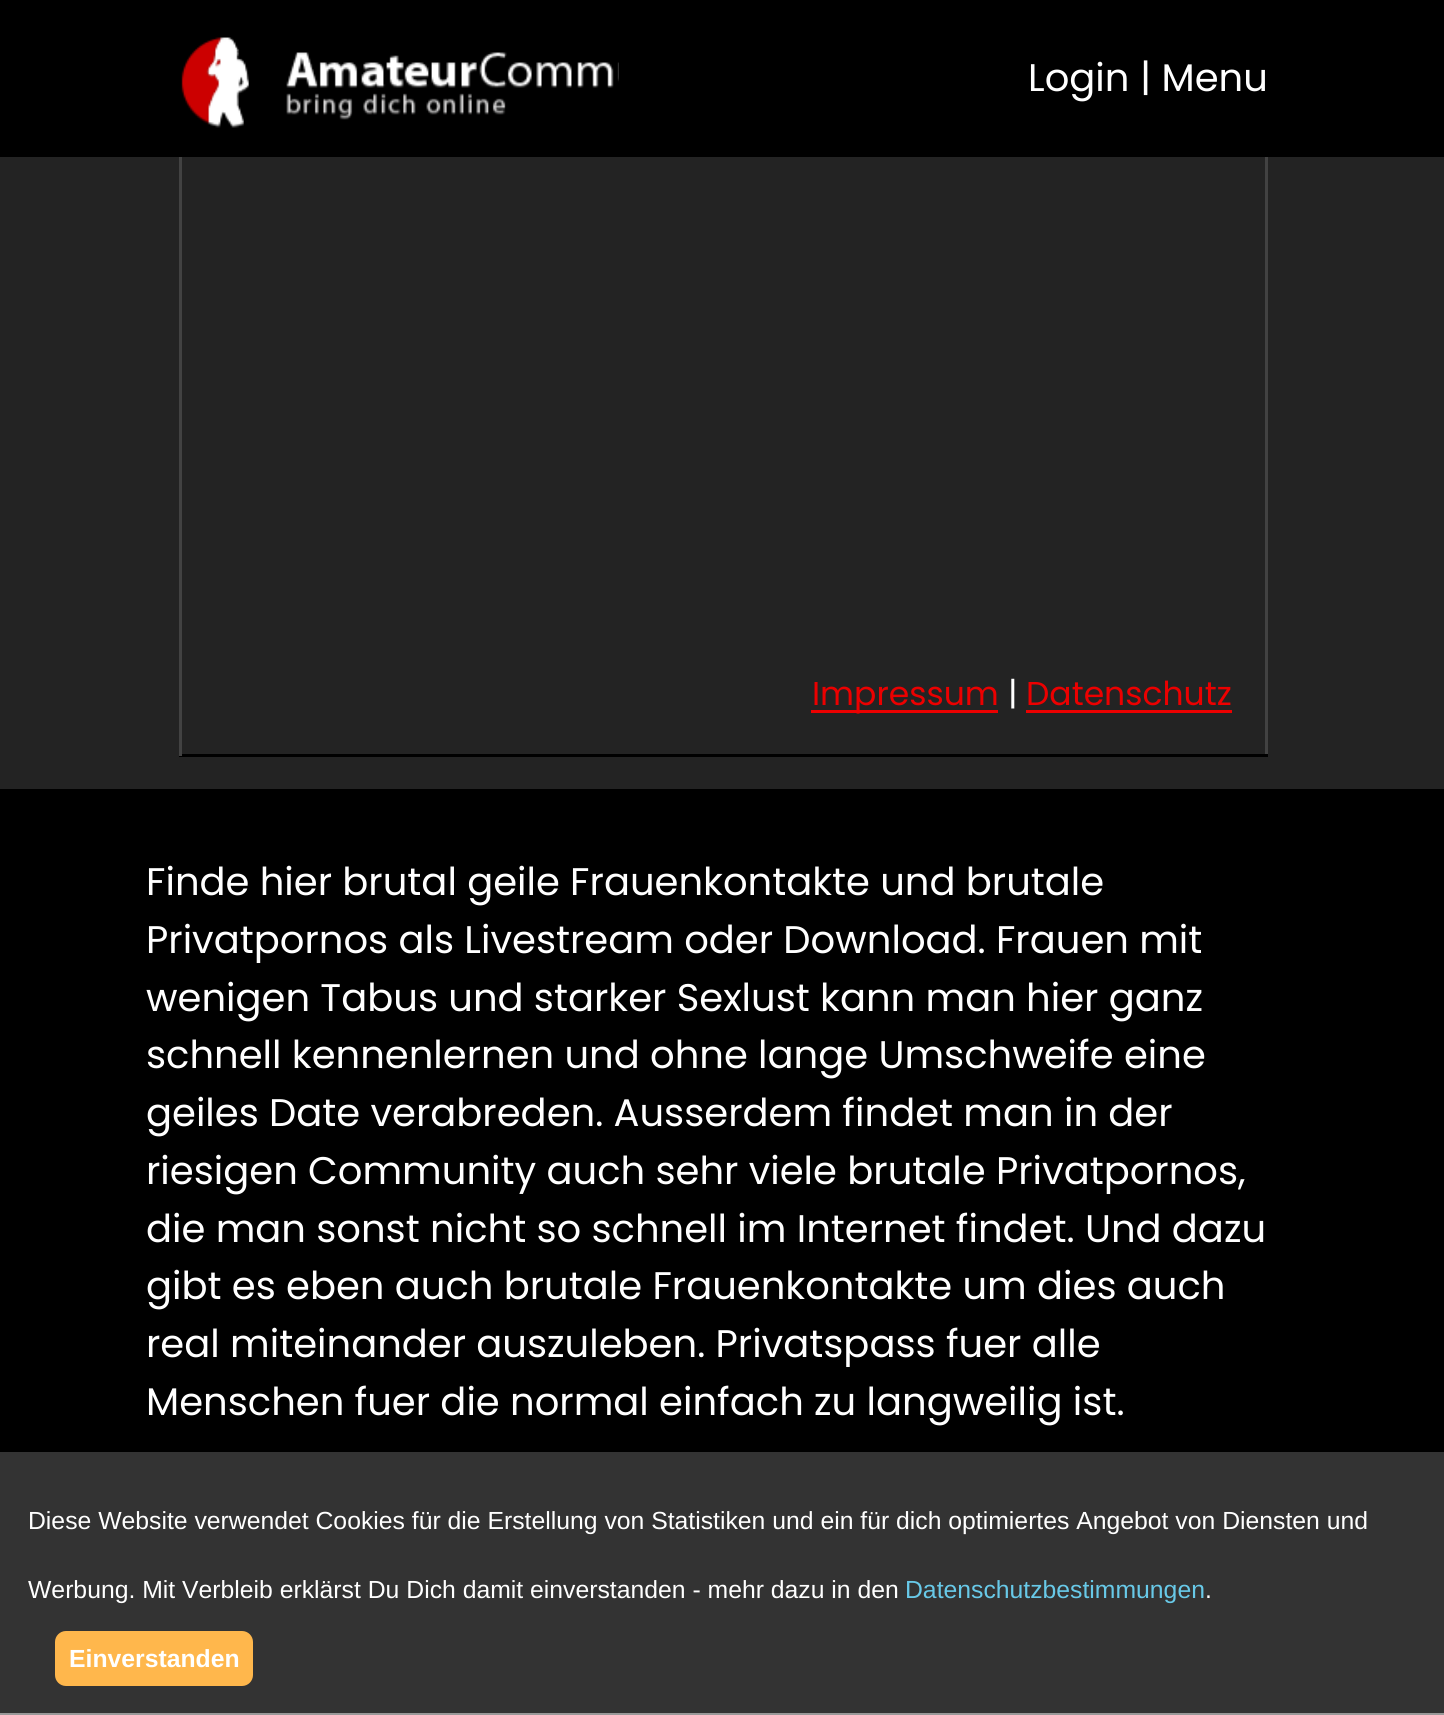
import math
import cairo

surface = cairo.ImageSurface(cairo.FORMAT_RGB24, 1444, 1715)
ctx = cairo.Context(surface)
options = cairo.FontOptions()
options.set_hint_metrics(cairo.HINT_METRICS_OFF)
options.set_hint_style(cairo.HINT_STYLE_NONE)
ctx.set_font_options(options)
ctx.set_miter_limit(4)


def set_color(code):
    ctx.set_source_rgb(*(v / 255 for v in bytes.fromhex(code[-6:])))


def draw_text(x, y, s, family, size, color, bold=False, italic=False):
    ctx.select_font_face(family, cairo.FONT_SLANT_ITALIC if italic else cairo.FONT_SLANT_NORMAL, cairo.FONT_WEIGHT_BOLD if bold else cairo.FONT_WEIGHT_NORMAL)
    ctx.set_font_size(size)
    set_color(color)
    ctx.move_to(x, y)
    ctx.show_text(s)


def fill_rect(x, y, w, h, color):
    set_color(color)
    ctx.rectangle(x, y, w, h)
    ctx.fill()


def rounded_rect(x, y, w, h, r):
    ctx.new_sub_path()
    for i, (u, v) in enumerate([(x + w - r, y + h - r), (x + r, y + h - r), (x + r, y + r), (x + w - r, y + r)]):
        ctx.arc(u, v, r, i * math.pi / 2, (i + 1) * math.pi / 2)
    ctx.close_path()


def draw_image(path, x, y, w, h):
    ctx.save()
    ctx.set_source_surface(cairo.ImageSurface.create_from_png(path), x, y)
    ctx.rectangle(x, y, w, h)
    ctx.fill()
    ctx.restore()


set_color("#232323")
ctx.paint()
fill_rect(0, 0, 1444, 157, "#000000")
draw_image("assets/img1.png", 181, 37, 438, 91)
draw_text(1028, 91, "Login", "Poppins", 38.5, "#ffffff")
draw_text(1140, 91, "| Menu", "Poppins", 38.5, "#ffffff")
fill_rect(1265, 157, 3, 599, "#424242")
fill_rect(179, 754, 1089, 3, "#000000")
fill_rect(179, 157, 3, 599, "#424242")
fill_rect(811, 710, 187, 3, "#ec0000")
draw_text(812, 705, "Impressum", "Poppins", 33, "#ec0000")
draw_text(1008, 705, "|", "Poppins", 33, "#ffffff")
draw_text(1026, 705, "Datenschutz", "Poppins", 33, "#ec0000")
fill_rect(1026, 710, 206, 3, "#ec0000")
fill_rect(0, 789, 1444, 663, "#000000")
draw_text(146, 895, "Finde hier brutal geile Frauenkontakte und brutale", "Poppins", 38.5, "#ffffff")
draw_text(146, 953, "Privatpornos als Livestream oder Download. Frauen mit", "Poppins", 38.5, "#ffffff")
draw_text(146, 1011, "wenigen Tabus und starker Sexlust kann man hier ganz", "Poppins", 38.5, "#ffffff")
draw_text(146, 1068, "schnell kennenlernen und ohne lange Umschweife eine", "Poppins", 38.5, "#ffffff")
draw_text(146, 1126, "geiles Date verabreden. Ausserdem findet man in der", "Poppins", 38.5, "#ffffff")
draw_text(146, 1184, "riesigen Community auch sehr viele brutale Privatpornos,", "Poppins", 38.5, "#ffffff")
draw_text(146, 1242, "die man sonst nicht so schnell im Internet findet. Und dazu", "Poppins", 38.5, "#ffffff")
draw_text(146, 1299, "gibt es eben auch brutale Frauenkontakte um dies auch", "Poppins", 38.5, "#ffffff")
draw_text(146, 1357, "real miteinander auszuleben. Privatspass fuer alle", "Poppins", 38.5, "#ffffff")
draw_text(146, 1415, "Menschen fuer die normal einfach zu langweilig ist.", "Poppins", 38.5, "#ffffff")
fill_rect(0, 1452, 1444, 261, "#333333")
fill_rect(0, 1713, 1444, 2, "#999999")
draw_text(28, 1529, "Diese Website verwendet Cookies für die Erstellung von Statistiken und ein für dich optimiertes Angebot von Diensten und", "Liberation Sans", 24.75, "#ffffff")
draw_text(28, 1598, "Werbung. Mit Verbleib erklärst Du Dich damit einverstanden - mehr dazu in den", "Liberation Sans", 24.75, "#ffffff")
draw_text(905, 1598, "Datenschutzbestimmungen", "Liberation Sans", 24.75, "#68c9e8")
draw_text(1205, 1598, ".", "Liberation Sans", 24.75, "#ffffff")
set_color("#ffb74c")
rounded_rect(55, 1631, 198, 55, 11)
ctx.fill()
draw_text(69, 1667, "Einverstanden", "Liberation Sans", 24.75, "#ffffff", bold=True)
surface.write_to_png("output.png")
